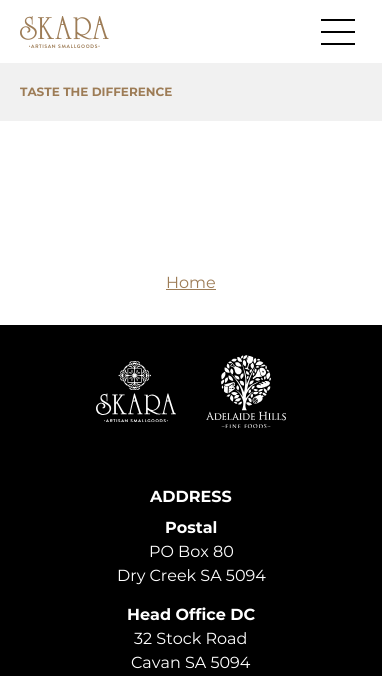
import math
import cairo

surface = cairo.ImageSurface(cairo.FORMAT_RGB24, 382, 676)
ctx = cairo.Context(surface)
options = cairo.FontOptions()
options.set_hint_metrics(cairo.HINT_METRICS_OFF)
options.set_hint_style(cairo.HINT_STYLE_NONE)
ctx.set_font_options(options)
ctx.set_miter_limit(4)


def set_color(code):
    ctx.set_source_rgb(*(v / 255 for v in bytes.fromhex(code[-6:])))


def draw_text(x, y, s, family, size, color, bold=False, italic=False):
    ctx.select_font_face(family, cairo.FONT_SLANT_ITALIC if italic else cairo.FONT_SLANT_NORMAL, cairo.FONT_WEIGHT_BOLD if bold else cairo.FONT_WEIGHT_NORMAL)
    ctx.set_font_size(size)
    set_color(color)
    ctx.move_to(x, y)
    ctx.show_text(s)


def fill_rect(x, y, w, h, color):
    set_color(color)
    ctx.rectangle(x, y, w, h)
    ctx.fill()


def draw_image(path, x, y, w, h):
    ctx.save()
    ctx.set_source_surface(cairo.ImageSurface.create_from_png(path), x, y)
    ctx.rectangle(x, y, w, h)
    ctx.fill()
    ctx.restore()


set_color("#ffffff")
ctx.paint()
draw_image("assets/img1.png", 20, 16, 89, 32)
fill_rect(321, 19, 34, 2, "#000000")
fill_rect(321, 31, 34, 2, "#000000")
fill_rect(321, 43, 34, 2, "#000000")
fill_rect(0, 63, 382, 58, "#f1f1f1")
draw_text(20, 96, "TASTE THE DIFFERENCE", "Montserrat", 12, "#9d7c56", bold=True)
draw_text(166, 288, "Home", "Montserrat", 16, "#9d7c56")
fill_rect(166, 289, 50, 1, "#9d7c56")
fill_rect(0, 325, 382, 351, "#000000")
draw_image("assets/img2.png", 96, 361, 80, 61)
draw_image("assets/img3.png", 206, 355, 80, 73)
draw_text(150, 502, "ADDRESS", "Montserrat", 16, "#ffffff", bold=True)
draw_text(165, 533, "Postal", "Montserrat", 16, "#ffffff", bold=True)
draw_text(149, 557, "PO Box 80", "Montserrat", 16, "#ffffff")
draw_text(117, 581, "Dry Creek SA 5094", "Montserrat", 16, "#ffffff")
draw_text(127, 620, "Head Office DC", "Montserrat", 16, "#ffffff", bold=True)
draw_text(134, 644, "32 Stock Road", "Montserrat", 16, "#ffffff")
draw_text(131, 668, "Cavan SA 5094", "Montserrat", 16, "#ffffff")
surface.write_to_png("output.png")
